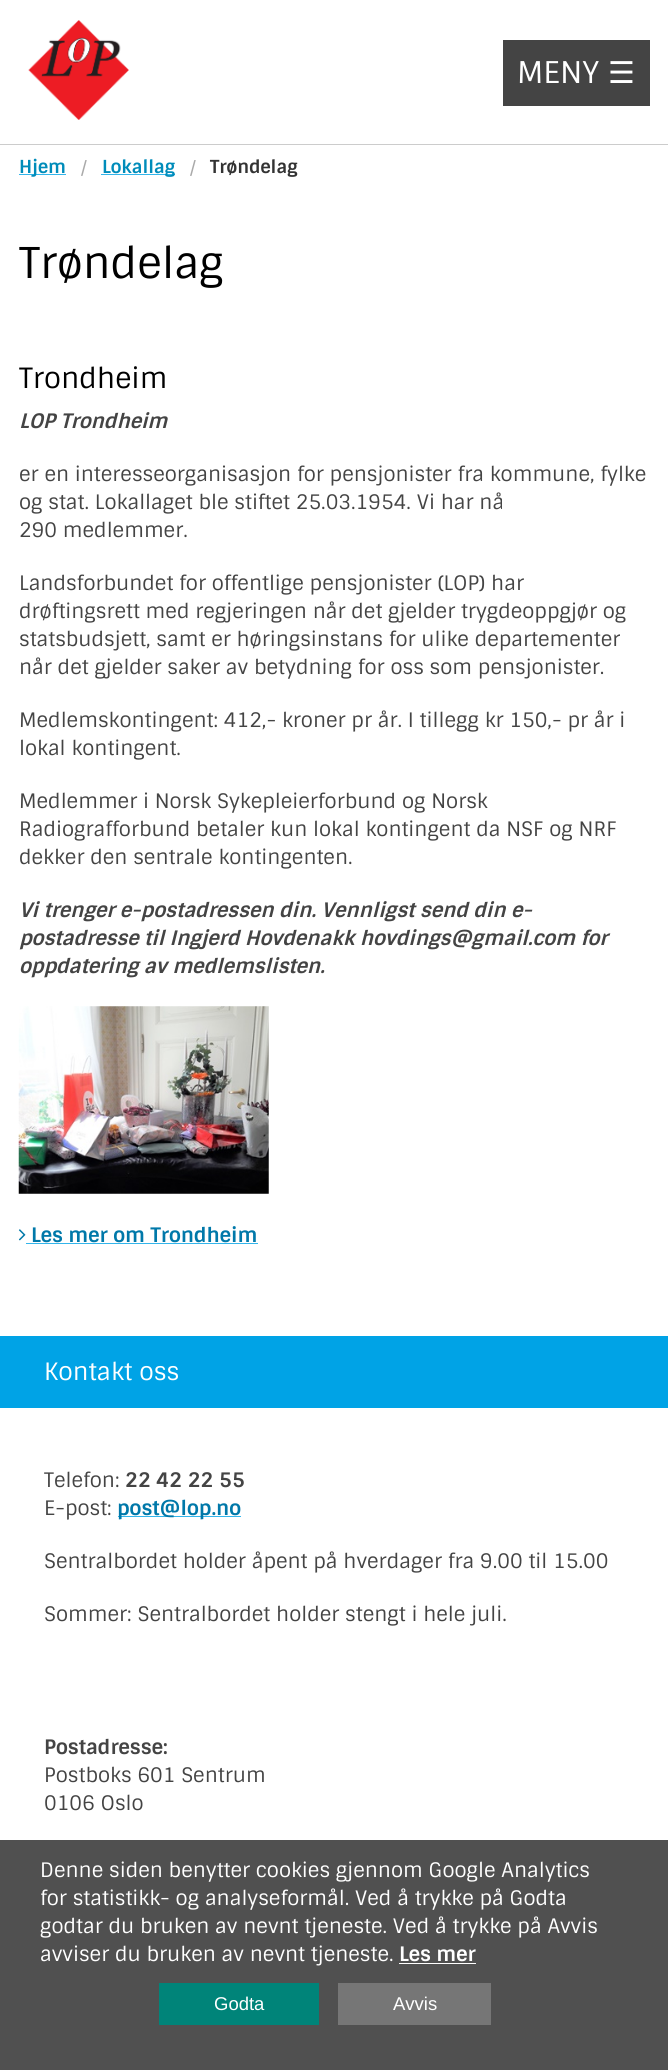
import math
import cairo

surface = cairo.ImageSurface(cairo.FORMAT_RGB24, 668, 2070)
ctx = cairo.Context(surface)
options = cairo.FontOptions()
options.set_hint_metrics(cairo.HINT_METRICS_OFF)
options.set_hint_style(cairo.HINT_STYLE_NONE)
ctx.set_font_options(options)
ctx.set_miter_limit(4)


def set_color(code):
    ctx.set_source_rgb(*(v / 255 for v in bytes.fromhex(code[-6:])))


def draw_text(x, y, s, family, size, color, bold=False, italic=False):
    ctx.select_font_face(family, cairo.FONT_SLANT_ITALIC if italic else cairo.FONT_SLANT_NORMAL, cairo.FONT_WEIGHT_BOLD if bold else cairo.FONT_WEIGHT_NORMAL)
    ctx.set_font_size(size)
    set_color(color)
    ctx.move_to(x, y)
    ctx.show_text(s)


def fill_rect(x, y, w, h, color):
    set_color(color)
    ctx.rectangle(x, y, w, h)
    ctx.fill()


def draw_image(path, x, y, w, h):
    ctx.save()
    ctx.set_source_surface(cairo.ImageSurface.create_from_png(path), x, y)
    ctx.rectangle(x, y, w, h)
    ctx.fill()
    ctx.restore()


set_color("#ffffff")
ctx.paint()
draw_image("assets/img1.png", 28, 20, 101, 100)
fill_rect(503, 40, 147, 66, "#444444")
draw_text(517, 83, "MENY", "Sintony", 30, "#ffffff")
draw_text(608, 83, "☰", "DejaVu Sans", 30, "#ffffff")
fill_rect(0, 144, 668, 1, "#cccccc")
fill_rect(19, 174, 47, 1, "#33b5eb")
draw_text(19, 173, "Hjem", "Sintony", 18, "#008cba", bold=True)
draw_text(81, 174, "/", "Sintony", 18, "#aaaaaa")
fill_rect(101, 174, 74, 1, "#33b5eb")
draw_text(102, 173, "Lokallag", "Sintony", 18, "#008cba", bold=True)
draw_text(190, 174, "/", "Sintony", 18, "#aaaaaa")
draw_text(210, 173, "Trøndelag", "Sintony", 18, "#333333", bold=True)
draw_text(19, 278, "Trøndelag", "Sintony", 42.5, "#000000")
draw_text(19, 388, "Trondheim", "Sintony", 28, "#000000")
draw_text(19, 428, "LOP Trondheim", "Sintony", 20, "#444444", bold=True, italic=True)
draw_text(19, 481, "er en interesseorganisasjon for pensjonister fra kommune, fylke", "Sintony", 20, "#444444")
draw_text(19, 509, "og stat. Lokallaget ble stiftet 25.03.1954. Vi har nå", "Sintony", 20, "#444444")
draw_text(19, 537, "290 medlemmer.", "Sintony", 20, "#444444")
draw_text(19, 590, "Landsforbundet for offentlige pensjonister (LOP) har", "Sintony", 20, "#444444")
draw_text(19, 618, "drøftingsrett med regjeringen når det gjelder trygdeoppgjør og", "Sintony", 20, "#444444")
draw_text(19, 646, "statsbudsjett, samt er høringsinstans for ulike departementer", "Sintony", 20, "#444444")
draw_text(19, 674, "når det gjelder saker av betydning for oss som pensjonister.", "Sintony", 20, "#444444")
draw_text(19, 727, "Medlemskontingent: 412,- kroner pr år. I tillegg kr 150,- pr år i", "Sintony", 20, "#444444")
draw_text(19, 755, "lokal kontingent.", "Sintony", 20, "#444444")
draw_text(19, 808, "Medlemmer i Norsk Sykepleierforbund og Norsk", "Sintony", 20, "#444444")
draw_text(19, 836, "Radiografforbund betaler kun lokal kontingent da NSF og NRF", "Sintony", 20, "#444444")
draw_text(19, 864, "dekker den sentrale kontingenten.", "Sintony", 20, "#444444")
draw_text(19, 917, "Vi trenger e-postadressen din. Vennligst send din e-", "Sintony", 20, "#444444", bold=True, italic=True)
draw_text(19, 945, "postadresse til Ingjerd Hovdenakk hovdings@gmail.com for", "Sintony", 20, "#444444", bold=True, italic=True)
draw_text(19, 973, "oppdatering av medlemslisten.", "Sintony", 20, "#444444", bold=True, italic=True)
draw_image("assets/img2.png", 18, 1006, 251, 188)
draw_image("assets/img3.png", 18, 1229, 8, 12)
draw_text(31, 1242, "Les mer om Trondheim", "Sintony", 20, "#0078a9", bold=True)
fill_rect(26, 1243, 232, 1, "#33b5eb")
fill_rect(0, 1336, 668, 72, "#00a3e6")
draw_text(44, 1380, "Kontakt oss", "Sintony", 24, "#ffffff")
draw_text(44, 1487, "Telefon:", "Sintony", 20, "#444444")
draw_text(125, 1487, "22 42 22 55", "Sintony", 20, "#444444", bold=True)
draw_text(44, 1515, "E-post:", "Sintony", 20, "#444444")
fill_rect(118, 1516, 123, 1, "#33b5eb")
draw_text(117, 1515, "post@lop.no", "Sintony", 20, "#0078a9", bold=True)
draw_text(44, 1568, "Sentralbordet holder åpent på hverdager fra 9.00 til 15.00", "Sintony", 20, "#444444")
draw_text(44, 1621, "Sommer: Sentralbordet holder stengt i hele juli.", "Sintony", 20, "#444444")
draw_text(44, 1754, "Postadresse:", "Sintony", 20, "#444444", bold=True)
draw_text(44, 1782, "Postboks 601 Sentrum", "Sintony", 20, "#444444")
draw_text(44, 1810, "0106 Oslo", "Sintony", 20, "#444444")
fill_rect(0, 1840, 668, 230, "#505050")
draw_text(40, 1877, "Denne siden benytter cookies gjennom Google Analytics", "Sintony", 20, "#ffffff")
draw_text(40, 1905, "for statistikk- og analyseformål. Ved å trykke på Godta", "Sintony", 20, "#ffffff")
draw_text(40, 1933, "godtar du bruken av nevnt tjeneste. Ved å trykke på Avvis", "Sintony", 20, "#ffffff")
draw_text(40, 1961, "avviser du bruken av nevnt tjeneste.", "Sintony", 20, "#ffffff")
draw_text(399, 1961, "Les mer", "Sintony", 20, "#ffffff", bold=True)
fill_rect(399, 1963, 77, 1, "#ffffff")
fill_rect(159, 1983, 160, 42, "#008479")
draw_text(214, 2010, "Godta", "Liberation Sans", 18.5, "#ffffff")
fill_rect(338, 1983, 153, 42, "#767676")
draw_text(393, 2010, "Avvis", "Liberation Sans", 18.5, "#ffffff")
surface.write_to_png("output.png")
